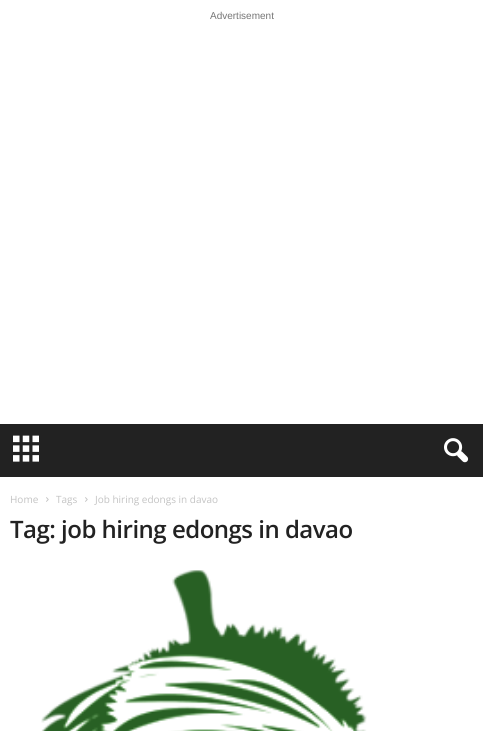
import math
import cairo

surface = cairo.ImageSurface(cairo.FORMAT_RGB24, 483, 731)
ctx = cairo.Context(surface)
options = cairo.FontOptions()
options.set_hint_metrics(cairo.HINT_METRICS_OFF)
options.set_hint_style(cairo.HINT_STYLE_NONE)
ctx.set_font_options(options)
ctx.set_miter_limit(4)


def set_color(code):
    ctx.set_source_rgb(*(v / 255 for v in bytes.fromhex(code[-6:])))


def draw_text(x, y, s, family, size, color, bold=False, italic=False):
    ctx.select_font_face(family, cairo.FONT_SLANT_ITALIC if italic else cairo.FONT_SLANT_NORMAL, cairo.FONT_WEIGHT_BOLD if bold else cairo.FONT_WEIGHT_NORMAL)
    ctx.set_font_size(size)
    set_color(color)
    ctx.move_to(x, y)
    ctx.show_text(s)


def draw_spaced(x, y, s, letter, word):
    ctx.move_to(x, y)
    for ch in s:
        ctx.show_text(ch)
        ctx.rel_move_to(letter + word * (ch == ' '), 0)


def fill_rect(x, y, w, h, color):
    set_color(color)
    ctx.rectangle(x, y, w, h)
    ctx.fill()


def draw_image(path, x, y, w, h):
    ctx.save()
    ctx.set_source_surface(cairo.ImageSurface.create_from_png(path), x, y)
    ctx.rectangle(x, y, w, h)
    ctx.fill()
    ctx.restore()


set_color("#ffffff")
ctx.paint()
draw_text(210, 19, "Advertisement", "Liberation Sans", 10, "#767676")
fill_rect(0, 424, 483, 53, "#222222")
draw_image("assets/img1.png", 13, 435, 26, 27)
draw_image("assets/img2.png", 444, 438, 25, 25)
draw_text(10, 503, "Home", "Open Sans", 10, "#c3c3c3")
draw_image("assets/img3.png", 46, 497, 3, 5)
draw_text(56, 503, "Tags", "Open Sans", 10, "#c3c3c3")
draw_image("assets/img3.png", 85, 497, 3, 5)
draw_text(95, 503, "Job hiring edongs in davao", "Open Sans", 10, "#c3c3c3")
ctx.select_font_face("Open Sans SemiBold")
ctx.set_font_size(24)
set_color("#222222")
draw_spaced(10, 538, "Tag: job hiring edongs in davao", -0.5, 0)
draw_image("assets/img4.png", 41, 570, 326, 161)
surface.write_to_png("output.png")
